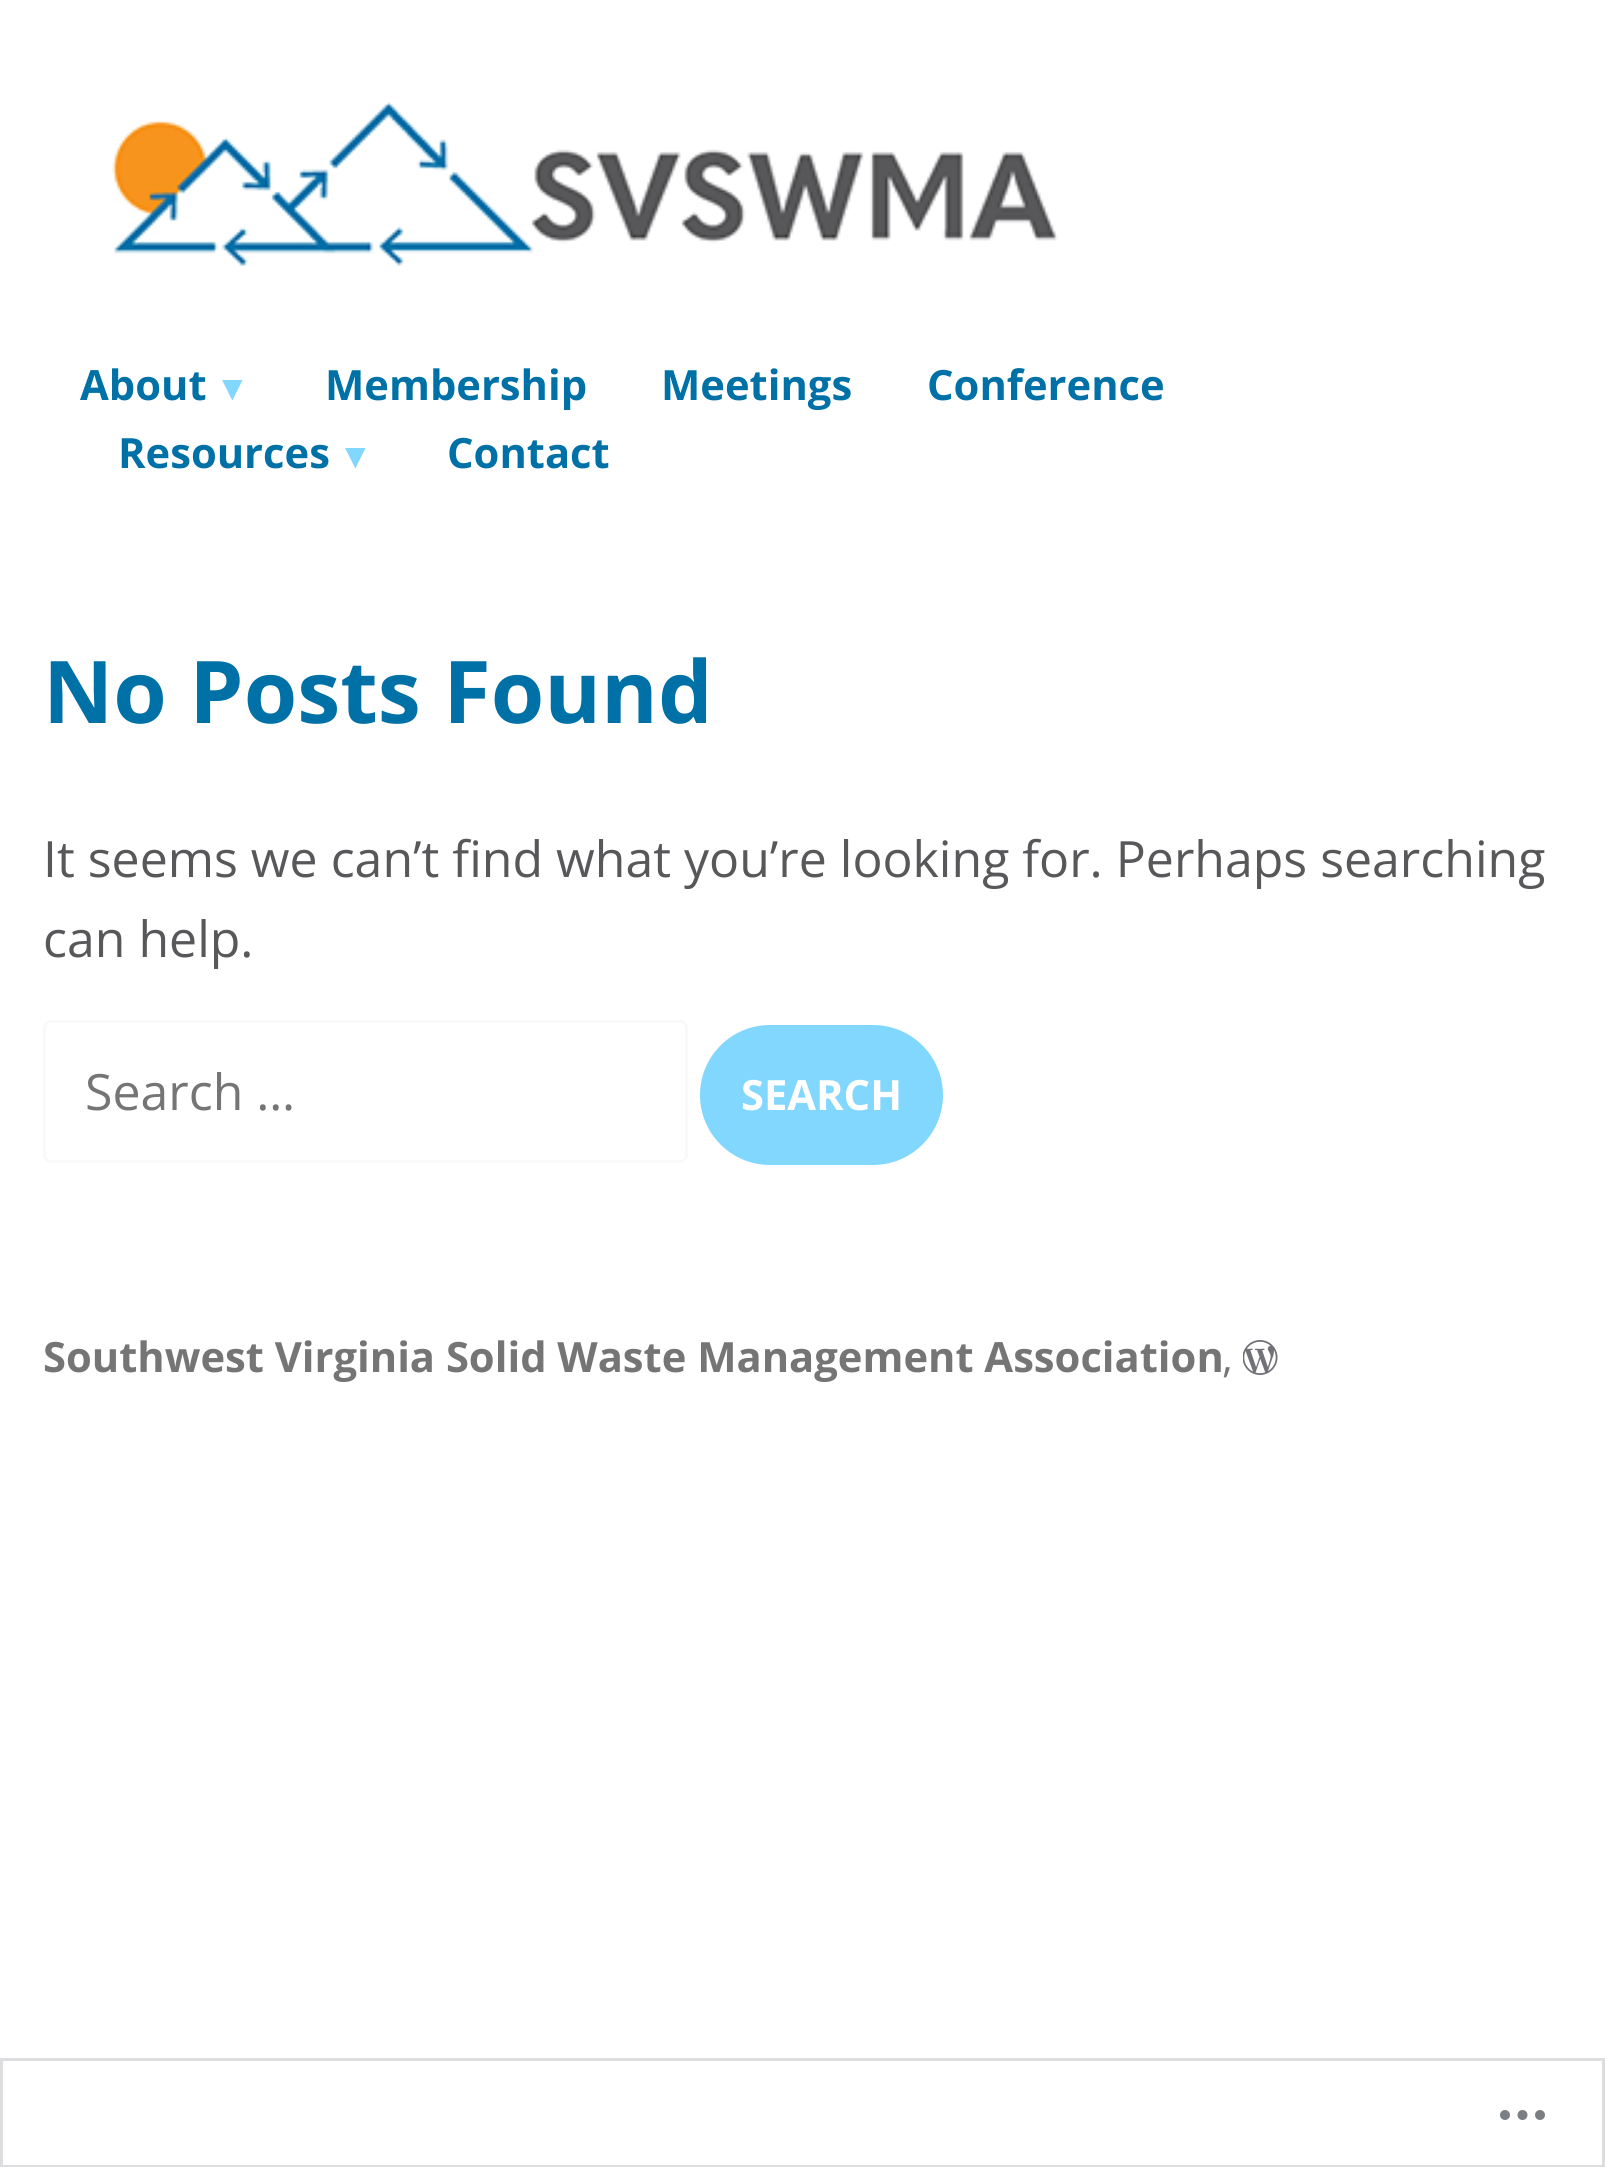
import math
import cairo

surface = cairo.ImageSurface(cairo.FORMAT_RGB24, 1605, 2167)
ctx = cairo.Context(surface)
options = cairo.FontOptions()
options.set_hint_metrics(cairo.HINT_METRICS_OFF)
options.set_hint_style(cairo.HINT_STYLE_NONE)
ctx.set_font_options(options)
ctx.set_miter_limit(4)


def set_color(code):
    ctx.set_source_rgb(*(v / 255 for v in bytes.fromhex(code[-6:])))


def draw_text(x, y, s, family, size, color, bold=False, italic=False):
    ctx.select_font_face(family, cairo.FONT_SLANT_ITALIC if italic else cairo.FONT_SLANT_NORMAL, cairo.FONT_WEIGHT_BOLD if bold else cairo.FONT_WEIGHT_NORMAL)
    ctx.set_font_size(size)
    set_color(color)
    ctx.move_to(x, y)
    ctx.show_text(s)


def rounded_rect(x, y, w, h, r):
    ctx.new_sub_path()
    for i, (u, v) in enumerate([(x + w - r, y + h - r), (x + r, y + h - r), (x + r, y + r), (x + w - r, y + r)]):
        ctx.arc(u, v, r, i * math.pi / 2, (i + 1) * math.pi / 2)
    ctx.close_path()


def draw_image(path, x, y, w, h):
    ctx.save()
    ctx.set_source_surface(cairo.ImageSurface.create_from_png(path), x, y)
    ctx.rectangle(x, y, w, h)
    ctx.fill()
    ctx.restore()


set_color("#ffffff")
ctx.paint()
draw_image("assets/img1.png", 112, 102, 946, 164)
draw_text(80, 400, "About", "Open Sans", 41.7, "#0071a7", bold=True)
draw_text(215, 400, "▼", "Liberation Serif", 35, "#82d7ff", bold=True)
draw_text(325, 400, "Membership", "Open Sans", 41.7, "#0071a7", bold=True)
draw_text(661, 400, "Meetings", "Open Sans", 41.7, "#0071a7", bold=True)
draw_text(927, 400, "Conference", "Open Sans", 41.7, "#0071a7", bold=True)
draw_text(118, 468, "Resources", "Open Sans", 41.7, "#0071a7", bold=True)
draw_text(338, 468, "▼", "Liberation Serif", 35, "#82d7ff", bold=True)
draw_text(447, 468, "Contact", "Open Sans", 41.7, "#0071a7", bold=True)
draw_text(43, 723, "No Posts Found", "Open Sans", 86.5, "#0071a7", bold=True)
draw_text(43, 877, "It seems we can’t find what you’re looking for. Perhaps searching", "Open Sans", 50, "#58585b")
draw_text(43, 957, "can help.", "Open Sans", 50, "#58585b")
rounded_rect(44.5, 1021.5, 642, 140, 6.5)
set_color("#f9f9f9")
ctx.set_line_width(3)
ctx.stroke()
draw_text(85, 1110, "Search …", "Open Sans", 50, "#757575")
set_color("#82d7ff")
rounded_rect(700, 1025, 243, 140, 70)
ctx.fill()
draw_text(741, 1110, "SEARCH", "Open Sans", 41.7, "#ffffff", bold=True)
draw_text(43, 1372, "Southwest Virginia Solid Waste Management Association", "Open Sans", 41.7, "#757575", bold=True)
draw_text(1222, 1372, ",", "Open Sans", 41.7, "#757575")
draw_image("assets/img2.png", 1243, 1340, 35, 35)
ctx.rectangle(1.5, 2059.5, 1602, 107)
set_color("#dddddf")
ctx.stroke()
draw_image("assets/img3.png", 1500, 2110, 45, 10)
surface.write_to_png("output.png")
